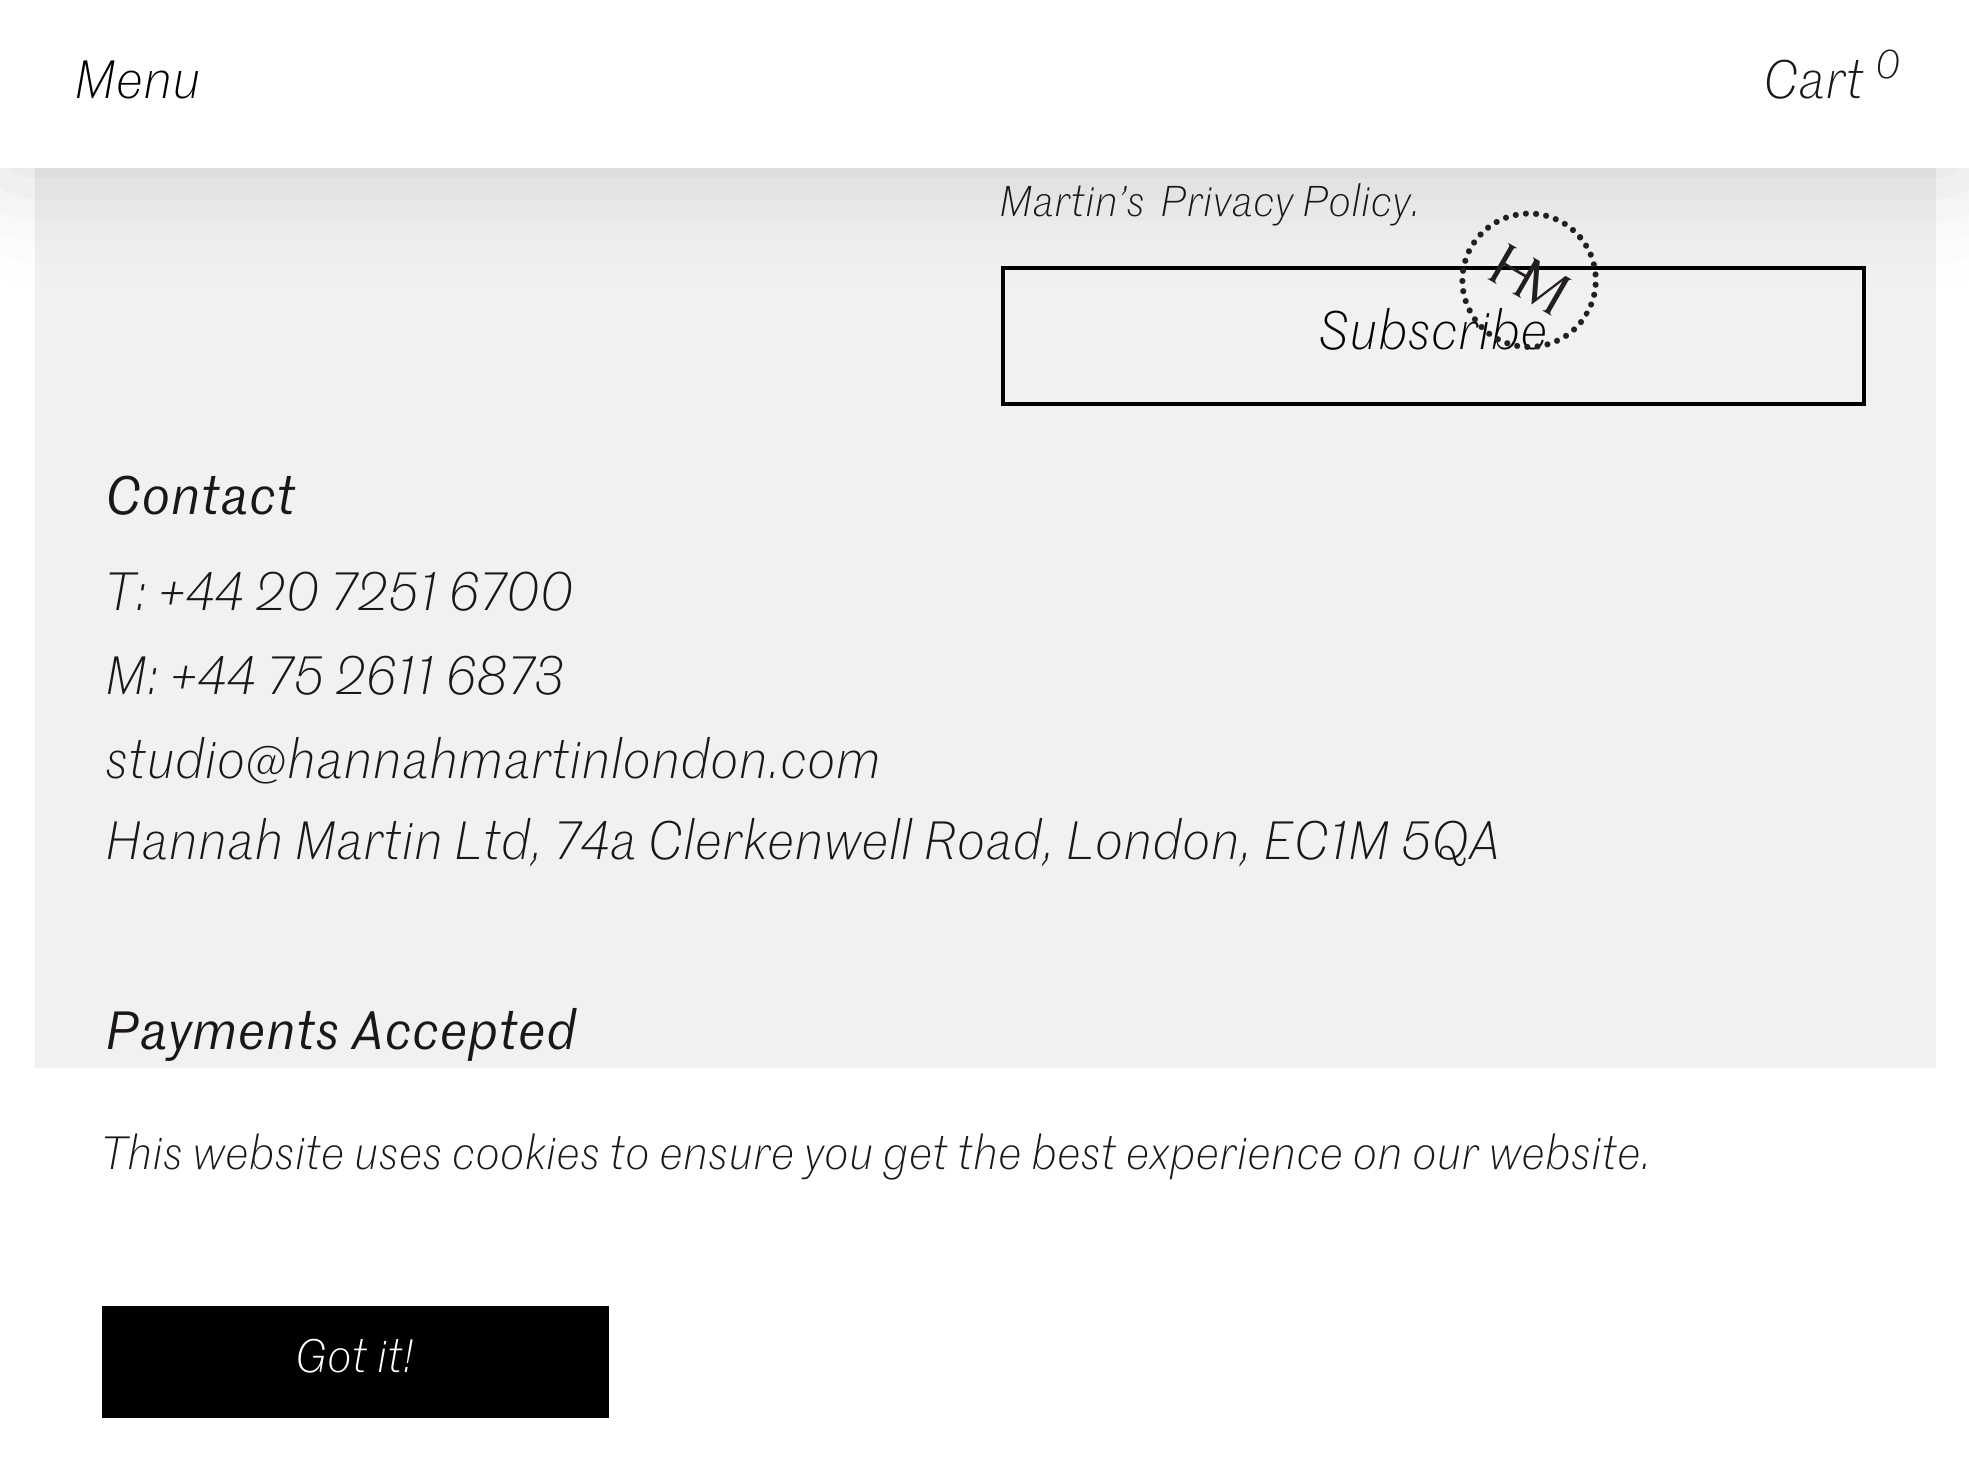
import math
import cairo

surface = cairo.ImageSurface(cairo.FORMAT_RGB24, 1969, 1472)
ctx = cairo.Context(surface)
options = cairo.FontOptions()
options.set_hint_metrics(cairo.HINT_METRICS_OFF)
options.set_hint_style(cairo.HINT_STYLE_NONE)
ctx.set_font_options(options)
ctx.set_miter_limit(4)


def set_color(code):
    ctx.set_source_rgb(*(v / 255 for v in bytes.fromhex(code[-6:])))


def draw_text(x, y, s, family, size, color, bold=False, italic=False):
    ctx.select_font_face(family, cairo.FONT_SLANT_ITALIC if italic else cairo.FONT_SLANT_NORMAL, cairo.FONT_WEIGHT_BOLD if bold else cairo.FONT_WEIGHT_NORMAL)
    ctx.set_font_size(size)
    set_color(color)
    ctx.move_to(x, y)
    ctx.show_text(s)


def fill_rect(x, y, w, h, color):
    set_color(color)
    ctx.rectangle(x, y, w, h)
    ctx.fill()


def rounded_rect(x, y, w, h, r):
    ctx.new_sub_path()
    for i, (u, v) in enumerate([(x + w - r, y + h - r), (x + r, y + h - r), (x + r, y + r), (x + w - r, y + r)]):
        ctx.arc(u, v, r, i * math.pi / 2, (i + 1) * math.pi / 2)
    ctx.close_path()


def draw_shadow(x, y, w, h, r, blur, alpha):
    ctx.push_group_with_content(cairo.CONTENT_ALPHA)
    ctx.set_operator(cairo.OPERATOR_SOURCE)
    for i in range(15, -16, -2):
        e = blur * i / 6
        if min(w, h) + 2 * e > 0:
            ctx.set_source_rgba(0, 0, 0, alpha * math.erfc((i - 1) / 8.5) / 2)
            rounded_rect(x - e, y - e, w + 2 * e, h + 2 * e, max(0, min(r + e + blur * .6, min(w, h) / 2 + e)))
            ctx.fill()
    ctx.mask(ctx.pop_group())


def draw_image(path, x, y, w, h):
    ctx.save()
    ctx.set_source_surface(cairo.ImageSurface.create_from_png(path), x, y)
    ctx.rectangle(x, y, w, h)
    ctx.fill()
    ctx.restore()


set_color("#ffffff")
ctx.paint()
fill_rect(35, 168, 1901, 900, "#f1f1ef")
ctx.rectangle(1003, 268, 861, 136)
set_color("#000000")
ctx.set_line_width(4)
ctx.stroke()
set_color("#000000")
draw_shadow(0, 0, 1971, 168, 0, 63, 0.16)
fill_rect(0, 0, 1969, 168, "#ffffff")
draw_text(74, 98, "Menu", "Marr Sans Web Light", 52.5, "#000000", italic=True)
draw_text(1763, 98, "Cart", "Marr Sans Web Light", 52.5, "#1b1718", italic=True)
draw_text(1875, 78, "0", "Marr Sans Web Light", 39, "#1b1718", italic=True)
draw_text(1318, 349, "Subscribe", "Marr Sans Web Light", 52.5, "#000000", italic=True)
draw_image("assets/img1.png", 1459, 210, 140, 140)
draw_text(999, 216, "Martin’s", "Marr Sans Web Light", 42, "#1b1718", italic=True)
draw_text(1160, 216, "Privacy Policy.", "Marr Sans Web Light", 42, "#1b1718", italic=True)
draw_text(105, 514, "Contact", "Marr Sans Web", 52.5, "#1b1718", italic=True)
draw_text(105, 610, "T: +44 20 7251 6700", "Marr Sans Web Light", 52.5, "#1b1718", italic=True)
draw_text(105, 694, "M: +44 75 2611 6873", "Marr Sans Web Light", 52.5, "#1b1718", italic=True)
draw_text(105, 778, "studio@hannahmartinlondon.com", "Marr Sans Web Light", 52.5, "#1b1718", italic=True)
draw_text(105, 859, "Hannah Martin Ltd, 74a Clerkenwell Road, London, EC1M 5QA", "Marr Sans Web Light", 52.5, "#1b1718", italic=True)
draw_text(105, 1049, "Payments Accepted", "Marr Sans Web", 52.5, "#1b1718", italic=True)
draw_text(101, 1169, "This website uses cookies to ensure you get the best experience on our website.", "Marr Sans Web Light", 45.5, "#1b1718", italic=True)
fill_rect(102, 1306, 507, 112, "#000000")
draw_text(295, 1372, "Got it!", "Marr Sans Web Light", 45.5, "#ffffff", italic=True)
surface.write_to_png("output.png")
